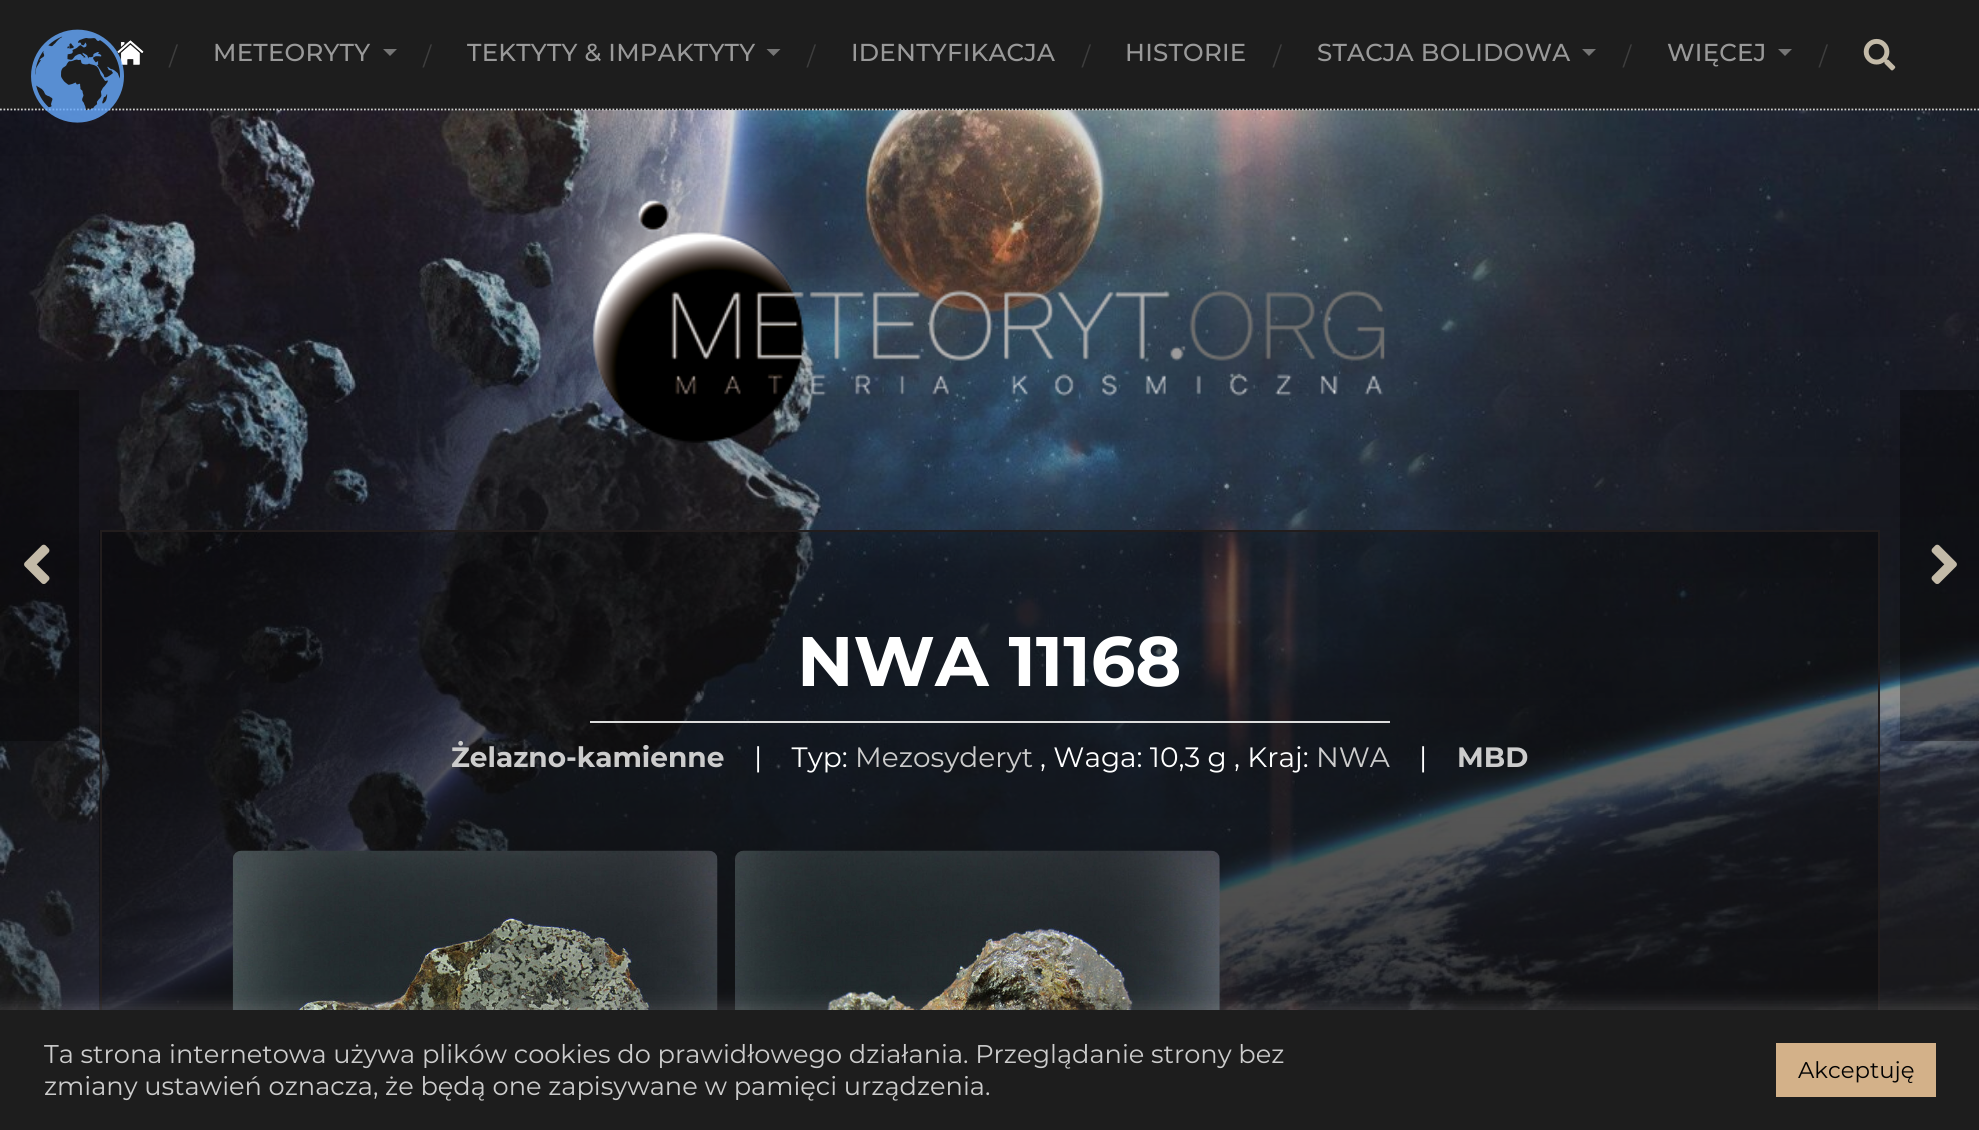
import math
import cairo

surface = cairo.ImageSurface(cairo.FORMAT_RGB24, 1979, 1130)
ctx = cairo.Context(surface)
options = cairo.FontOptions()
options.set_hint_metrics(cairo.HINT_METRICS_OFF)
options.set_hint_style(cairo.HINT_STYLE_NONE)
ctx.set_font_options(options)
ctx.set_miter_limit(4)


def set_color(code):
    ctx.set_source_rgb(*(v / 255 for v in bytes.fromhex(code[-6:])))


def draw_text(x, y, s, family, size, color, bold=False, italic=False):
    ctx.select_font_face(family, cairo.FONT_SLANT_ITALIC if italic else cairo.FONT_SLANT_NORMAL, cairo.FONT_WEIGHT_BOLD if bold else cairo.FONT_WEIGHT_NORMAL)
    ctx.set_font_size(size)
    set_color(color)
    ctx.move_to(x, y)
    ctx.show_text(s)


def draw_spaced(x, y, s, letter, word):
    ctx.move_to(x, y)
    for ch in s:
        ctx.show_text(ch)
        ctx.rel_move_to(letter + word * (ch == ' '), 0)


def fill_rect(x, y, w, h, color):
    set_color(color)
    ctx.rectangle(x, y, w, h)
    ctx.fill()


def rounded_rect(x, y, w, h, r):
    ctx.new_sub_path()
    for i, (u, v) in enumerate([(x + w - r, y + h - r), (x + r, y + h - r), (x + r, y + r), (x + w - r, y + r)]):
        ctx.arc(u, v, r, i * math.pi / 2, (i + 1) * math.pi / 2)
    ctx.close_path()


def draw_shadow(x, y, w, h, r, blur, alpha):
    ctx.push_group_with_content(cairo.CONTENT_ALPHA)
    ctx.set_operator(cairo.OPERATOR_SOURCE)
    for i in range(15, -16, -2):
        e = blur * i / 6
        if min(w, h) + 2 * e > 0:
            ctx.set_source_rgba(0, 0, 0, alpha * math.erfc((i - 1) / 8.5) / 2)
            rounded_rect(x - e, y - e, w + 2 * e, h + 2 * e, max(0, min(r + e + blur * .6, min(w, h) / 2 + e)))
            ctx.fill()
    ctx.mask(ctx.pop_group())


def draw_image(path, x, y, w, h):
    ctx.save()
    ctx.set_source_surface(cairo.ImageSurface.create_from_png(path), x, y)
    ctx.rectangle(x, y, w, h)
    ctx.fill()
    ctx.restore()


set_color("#ffffff")
ctx.paint()
fill_rect(0, 0, 1979, 110, "#1d1d1d")
draw_image("assets/img4.png", 0, 110, 1979, 900)
gradient = cairo.LinearGradient(990, 0, 990, 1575)
gradient.add_color_stop_rgba(0, 0.114, 0.114, 0.114, 0.1)
gradient.add_color_stop_rgba(1, 0.114, 0.114, 0.114, 1)
ctx.set_source(gradient)
ctx.rectangle(0, 110, 1979, 900)
ctx.fill()
ctx.new_path()
ctx.move_to(0, 109.5)
ctx.line_to(1979, 109.5)
set_color("#cccccc")
ctx.set_line_width(1.8)
ctx.set_dash([1.75, 1.75])
ctx.stroke()
draw_image("assets/img2.png", 117, 40, 27, 25)
draw_image("assets/img1.png", 31, 29, 93, 94)
draw_text(169, 65, "/", "Montserrat", 24.5, "#3d3d3d")
ctx.select_font_face("Montserrat Medium")
set_color("#999999")
draw_spaced(213, 61, "METEORYTY", 0.25, 0)
set_color("#757575")
ctx.new_path()
ctx.move_to(383, 49)
ctx.line_to(397, 49)
ctx.line_to(390, 56)
ctx.close_path()
ctx.fill()
draw_text(423, 65, "/", "Montserrat", 24.5, "#3d3d3d")
ctx.select_font_face("Montserrat Medium")
set_color("#999999")
draw_spaced(467, 61, "TEKTYTY & IMPAKTYTY", 0.25, 0)
set_color("#757575")
ctx.new_path()
ctx.move_to(766.5, 49)
ctx.line_to(780.5, 49)
ctx.line_to(773.5, 56)
ctx.close_path()
ctx.fill()
draw_text(807, 65, "/", "Montserrat", 24.5, "#3d3d3d")
ctx.select_font_face("Montserrat Medium")
set_color("#999999")
draw_spaced(851, 61, "IDENTYFIKACJA", 0.25, 0)
draw_text(1082, 65, "/", "Montserrat", 24.5, "#3d3d3d")
ctx.select_font_face("Montserrat Medium")
set_color("#999999")
draw_spaced(1125, 61, "HISTORIE", 0.25, 0)
draw_text(1273, 65, "/", "Montserrat", 24.5, "#3d3d3d")
ctx.select_font_face("Montserrat Medium")
set_color("#999999")
draw_spaced(1317, 61, "STACJA BOLIDOWA", 0.25, 0)
set_color("#757575")
ctx.new_path()
ctx.move_to(1582, 49)
ctx.line_to(1596, 49)
ctx.line_to(1589, 56)
ctx.close_path()
ctx.fill()
draw_text(1623, 65, "/", "Montserrat", 24.5, "#3d3d3d")
ctx.select_font_face("Montserrat Medium")
set_color("#999999")
draw_spaced(1667, 61, "WIĘCEJ", 0.25, 0)
set_color("#757575")
ctx.new_path()
ctx.move_to(1778, 49)
ctx.line_to(1792, 49)
ctx.line_to(1785, 56)
ctx.close_path()
ctx.fill()
draw_text(1819, 65, "/", "Montserrat", 24.5, "#3d3d3d")
draw_image("assets/img3.png", 1863, 38, 33, 33)
draw_image("assets/img5.png", 533, 143, 852, 300)
ctx.set_source_rgba(0, 0, 0, 0.33)
ctx.rectangle(99, 530, 1779, 480)
ctx.fill()
ctx.rectangle(101, 531, 1778, 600)
set_color("#221d1d")
ctx.set_line_width(2)
ctx.set_dash([])
ctx.stroke()
ctx.set_source_rgba(0, 0, 0, 0.33)
ctx.rectangle(0, 390, 79, 351)
ctx.fill()
draw_image("assets/img6.png", 24, 544, 26, 40)
ctx.rectangle(1900, 390, 79, 351)
ctx.fill()
draw_image("assets/img7.png", 1931, 544, 26, 40)
draw_image("assets/img8.png", 232, 850, 486, 160)
draw_image("assets/img9.png", 735, 850, 485, 160)
draw_text(797, 686, "NWA 11168", "Montserrat", 70, "#ffffff", bold=True)
fill_rect(590, 721, 800, 2, "#dddddd")
draw_text(451, 767, "Żelazno-kamienne", "Montserrat", 28, "#cccccc", bold=True)
draw_text(754, 767, "|    Typ:", "Montserrat", 28, "#ffffff")
draw_text(855, 767, "Mezosyderyt", "Montserrat", 28, "#cccccc")
draw_text(1040, 767, ", Waga: 10,3 g , Kraj:", "Montserrat", 28, "#ffffff")
draw_text(1316, 767, "NWA", "Montserrat", 28, "#cccccc")
draw_text(1419, 767, "|", "Montserrat", 28, "#ffffff")
draw_text(1457, 767, "MBD", "Montserrat", 28, "#cccccc", bold=True)
set_color("#acabab")
draw_shadow(0, 1008, 1979, 121, 0, 9, 0.3)
fill_rect(0, 1010, 1979, 120, "#1d1d1d")
draw_text(44, 1063, "Ta strona internetowa używa plików cookies do prawidłowego działania. Przeglądanie strony bez", "Montserrat", 25.65, "#cccccc")
draw_text(44, 1095, "zmiany ustawień oznacza, że będą one zapisywane w pamięci urządzenia.", "Montserrat", 25.65, "#cccccc")
fill_rect(1776, 1043, 160, 54, "#d3b189")
draw_text(1798, 1078, "Akceptuję", "Montserrat", 22.75, "#020202")
surface.write_to_png("output.png")
